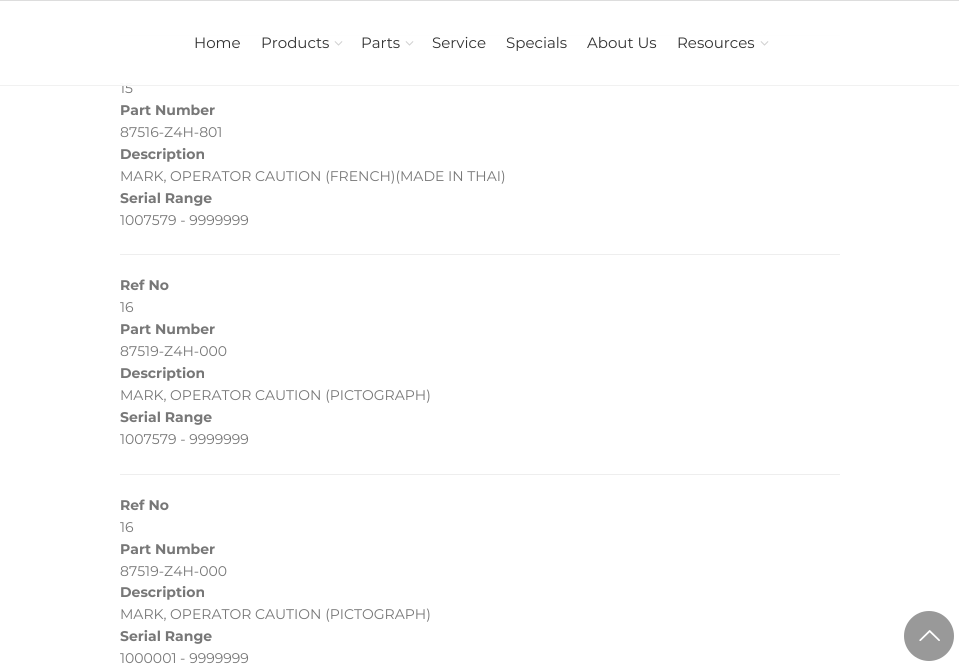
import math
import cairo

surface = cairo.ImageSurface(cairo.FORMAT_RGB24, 959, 666)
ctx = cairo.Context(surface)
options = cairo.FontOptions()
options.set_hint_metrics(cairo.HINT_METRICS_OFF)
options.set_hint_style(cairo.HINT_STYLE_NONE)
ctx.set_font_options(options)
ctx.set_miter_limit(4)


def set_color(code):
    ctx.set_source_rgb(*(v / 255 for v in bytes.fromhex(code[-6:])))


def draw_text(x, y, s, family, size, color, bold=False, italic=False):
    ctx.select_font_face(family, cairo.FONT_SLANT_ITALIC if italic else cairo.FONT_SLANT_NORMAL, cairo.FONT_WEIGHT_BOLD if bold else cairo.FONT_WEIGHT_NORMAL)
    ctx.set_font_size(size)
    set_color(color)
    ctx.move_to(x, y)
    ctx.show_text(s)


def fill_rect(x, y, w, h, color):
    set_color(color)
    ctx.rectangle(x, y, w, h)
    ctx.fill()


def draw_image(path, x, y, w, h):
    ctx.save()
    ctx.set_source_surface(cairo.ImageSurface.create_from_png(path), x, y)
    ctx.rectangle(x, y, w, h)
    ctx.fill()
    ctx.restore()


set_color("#ffffff")
ctx.paint()
fill_rect(120, 35, 720, 1, "#eeeeee")
draw_text(120, 93, "15", "Montserrat", 14, "#777777")
ctx.set_source_rgba(1, 1, 1, 0.95)
ctx.rectangle(119, 35, 721, 50)
ctx.fill()
fill_rect(0, 0, 959, 1, "#dddddd")
fill_rect(0, 85, 959, 1, "#f1f1f1")
draw_text(194, 48, "Home", "Montserrat", 15, "#333333")
draw_text(261, 48, "Products", "Montserrat", 15, "#333333")
draw_image("assets/img1.png", 334, 41, 9, 5)
draw_text(361, 48, "Parts", "Montserrat", 15, "#333333")
draw_image("assets/img1.png", 405, 41, 9, 5)
draw_text(432, 48, "Service", "Montserrat", 15, "#333333")
draw_text(506, 48, "Specials", "Montserrat", 15, "#333333")
draw_text(587, 48, "About Us", "Montserrat", 15, "#333333")
draw_text(677, 48, "Resources", "Montserrat", 15, "#333333")
draw_image("assets/img1.png", 760, 41, 9, 5)
draw_text(120, 115, "Part Number", "Montserrat", 14, "#777777", bold=True)
draw_text(120, 137, "87516-Z4H-801", "Montserrat", 14, "#777777")
draw_text(120, 159, "Description", "Montserrat", 14, "#777777", bold=True)
draw_text(120, 181, "MARK, OPERATOR CAUTION (FRENCH)(MADE IN THAI)", "Montserrat", 14, "#777777")
draw_text(120, 203, "Serial Range", "Montserrat", 14, "#777777", bold=True)
draw_text(120, 225, "1007579 - 9999999", "Montserrat", 14, "#777777")
fill_rect(120, 254, 720, 1, "#eeeeee")
draw_text(120, 290, "Ref No", "Montserrat", 14, "#777777", bold=True)
draw_text(120, 312, "16", "Montserrat", 14, "#777777")
draw_text(120, 334, "Part Number", "Montserrat", 14, "#777777", bold=True)
draw_text(120, 356, "87519-Z4H-000", "Montserrat", 14, "#777777")
draw_text(120, 378, "Description", "Montserrat", 14, "#777777", bold=True)
draw_text(120, 400, "MARK, OPERATOR CAUTION (PICTOGRAPH)", "Montserrat", 14, "#777777")
draw_text(120, 422, "Serial Range", "Montserrat", 14, "#777777", bold=True)
draw_text(120, 444, "1007579 - 9999999", "Montserrat", 14, "#777777")
fill_rect(120, 474, 720, 1, "#eeeeee")
draw_text(120, 510, "Ref No", "Montserrat", 14, "#777777", bold=True)
draw_text(120, 532, "16", "Montserrat", 14, "#777777")
draw_text(120, 554, "Part Number", "Montserrat", 14, "#777777", bold=True)
draw_text(120, 576, "87519-Z4H-000", "Montserrat", 14, "#777777")
draw_text(120, 597, "Description", "Montserrat", 14, "#777777", bold=True)
draw_text(120, 619, "MARK, OPERATOR CAUTION (PICTOGRAPH)", "Montserrat", 14, "#777777")
draw_text(120, 641, "Serial Range", "Montserrat", 14, "#777777", bold=True)
draw_text(120, 663, "1000001 - 9999999", "Montserrat", 14, "#777777")
set_color("#999999")
ctx.new_path()
ctx.arc(929, 636, 25, 0, 2 * math.pi)
ctx.fill()
draw_image("assets/img2.png", 919, 630, 21, 11)
surface.write_to_png("output.png")
